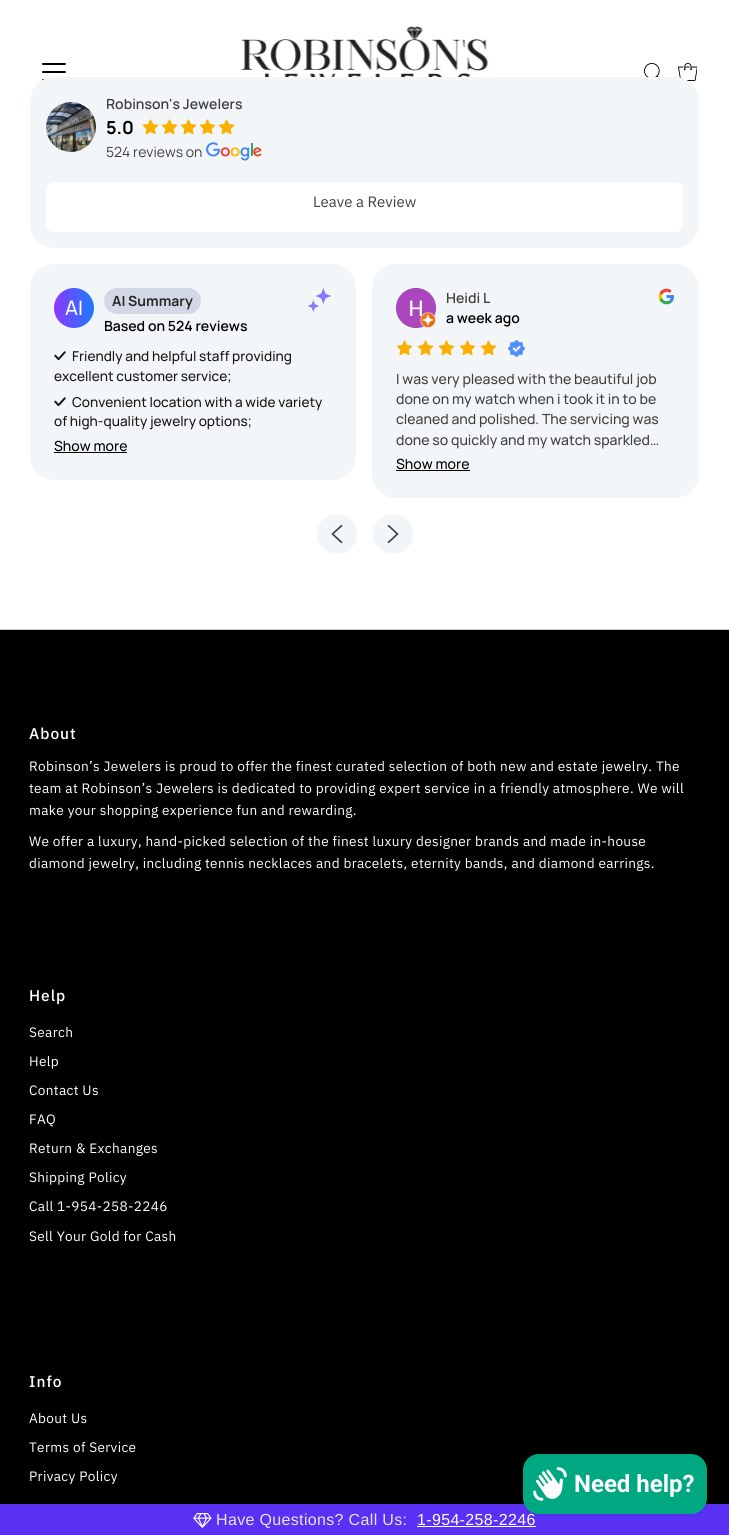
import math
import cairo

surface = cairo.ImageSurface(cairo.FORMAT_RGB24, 729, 1535)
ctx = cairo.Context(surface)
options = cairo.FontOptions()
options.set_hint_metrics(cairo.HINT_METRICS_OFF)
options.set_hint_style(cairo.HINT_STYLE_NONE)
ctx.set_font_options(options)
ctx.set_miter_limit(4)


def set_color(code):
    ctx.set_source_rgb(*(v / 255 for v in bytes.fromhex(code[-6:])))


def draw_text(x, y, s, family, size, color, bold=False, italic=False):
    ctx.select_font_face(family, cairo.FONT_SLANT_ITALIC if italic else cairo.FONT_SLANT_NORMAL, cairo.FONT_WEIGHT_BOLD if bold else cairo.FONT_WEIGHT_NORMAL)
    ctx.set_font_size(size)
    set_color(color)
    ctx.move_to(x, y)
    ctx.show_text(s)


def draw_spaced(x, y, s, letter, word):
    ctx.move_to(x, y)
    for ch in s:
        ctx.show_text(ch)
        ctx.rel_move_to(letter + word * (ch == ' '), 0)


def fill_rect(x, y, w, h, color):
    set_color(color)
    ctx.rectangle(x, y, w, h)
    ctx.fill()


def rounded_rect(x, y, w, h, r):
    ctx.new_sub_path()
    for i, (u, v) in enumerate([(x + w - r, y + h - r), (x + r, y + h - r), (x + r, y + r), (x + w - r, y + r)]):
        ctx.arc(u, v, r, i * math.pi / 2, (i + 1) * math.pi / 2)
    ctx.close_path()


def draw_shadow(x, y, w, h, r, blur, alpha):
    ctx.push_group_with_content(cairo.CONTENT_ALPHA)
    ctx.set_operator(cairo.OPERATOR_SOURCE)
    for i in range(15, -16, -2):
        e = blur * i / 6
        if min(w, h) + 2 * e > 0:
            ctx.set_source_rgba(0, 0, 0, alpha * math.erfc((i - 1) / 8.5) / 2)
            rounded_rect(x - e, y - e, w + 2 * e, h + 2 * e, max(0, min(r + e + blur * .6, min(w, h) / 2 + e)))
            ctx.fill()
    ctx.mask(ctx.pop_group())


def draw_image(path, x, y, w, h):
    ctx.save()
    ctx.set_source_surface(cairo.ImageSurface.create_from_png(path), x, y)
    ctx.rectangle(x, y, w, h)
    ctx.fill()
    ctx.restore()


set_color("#ffffff")
ctx.paint()
draw_image("assets/img1.png", 42, 63, 24, 18)
draw_image("assets/img2.png", 241, 26, 248, 51)
draw_image("assets/img3.png", 644, 63, 16, 14)
draw_image("assets/img4.png", 678, 63, 19, 18)
set_color("#f3f6f9")
rounded_rect(30, 77, 669, 171, 24)
ctx.fill()
draw_image("assets/img5.png", 46, 102, 50, 50)
draw_text(106, 109, "Robinson's Jewelers", "Manrope SemiBold", 14, "#404040")
draw_text(106, 134, "5.0", "Manrope", 18, "#000000", bold=True)
draw_image("assets/img6.png", 142, 119, 17, 16)
draw_image("assets/img6.png", 161, 119, 17, 16)
draw_image("assets/img6.png", 180, 119, 17, 16)
draw_image("assets/img6.png", 199, 119, 17, 16)
draw_image("assets/img6.png", 218, 119, 17, 16)
draw_text(106, 157, "524 reviews on", "Manrope", 14, "#404040")
draw_image("assets/img7.png", 206, 142, 56, 19)
set_color("#ffffff")
rounded_rect(46, 182, 637, 50, 8)
ctx.fill()
draw_text(313, 207, "Leave a Review", "IBM Plex Sans", 15, "#404040")
set_color("#f3f6f9")
rounded_rect(30, 264, 326, 216, 24)
ctx.fill()
gradient = cairo.LinearGradient(54, 308, 94, 308)
gradient.add_color_stop_rgba(0, 0.553, 0.22, 1, 1)
gradient.add_color_stop_rgba(1, 0.098, 0.482, 1, 1)
ctx.set_source(gradient)
ctx.arc(74, 308, 20, 0, 2 * math.pi)
ctx.fill()
draw_text(65, 315, "AI", "Manrope Medium", 20, "#ffffff")
set_color("#d3d8e7")
rounded_rect(104, 288, 97, 26, 13)
ctx.fill()
draw_text(112, 306, "AI Summary", "Manrope", 14, "#282828", bold=True)
draw_text(104, 331, "Based on 524 reviews", "Manrope SemiBold", 14, "#000000")
draw_image("assets/img8.png", 308, 288, 23, 24)
draw_image("assets/img9.png", 54, 351, 12, 10)
draw_text(72, 361, "Friendly and helpful staff providing", "Manrope Medium", 13.6, "#161616")
draw_text(54, 381, "excellent customer service;", "Manrope Medium", 13.6, "#161616")
draw_image("assets/img9.png", 54, 397, 12, 10)
draw_text(72, 407, "Convenient location with a wide variety", "Manrope Medium", 13.6, "#161616")
draw_text(54, 426, "of high-quality jewelry options;", "Manrope Medium", 13.6, "#161616")
draw_text(54, 451, "Show more", "Manrope Medium", 14, "#000000")
fill_rect(54, 452, 73, 1, "#000000")
set_color("#f3f6f9")
rounded_rect(372, 264, 327, 234, 24)
ctx.fill()
draw_image("assets/img10.png", 396, 288, 40, 40)
draw_text(446, 303, "Heidi L", "Manrope SemiBold", 14, "#404040")
draw_text(446, 323, "a week ago", "Manrope SemiBold", 14, "#000000")
draw_image("assets/img11.png", 658, 288, 16, 17)
draw_image("assets/img6.png", 396, 340, 17, 16)
draw_image("assets/img6.png", 417, 340, 17, 16)
draw_image("assets/img6.png", 438, 340, 17, 16)
draw_image("assets/img6.png", 459, 340, 17, 16)
draw_image("assets/img6.png", 480, 340, 17, 16)
draw_image("assets/img12.png", 508, 340, 17, 17)
draw_text(396, 384, "I was very pleased with the beautiful job", "Manrope Medium", 14, "#404040")
draw_text(396, 404, "done on my watch when i took it in to be", "Manrope Medium", 14, "#404040")
draw_text(396, 424, "cleaned and polished. The servicing was", "Manrope Medium", 14, "#404040")
draw_text(396, 445, "done so quickly and my watch sparkled…", "Manrope Medium", 14, "#404040")
draw_text(396, 469, "Show more", "Manrope Medium", 14, "#000000")
fill_rect(396, 470, 74, 1, "#000000")
set_color("#f3f6f9")
ctx.new_path()
ctx.arc(337, 534, 20, 0, 2 * math.pi)
ctx.fill()
draw_image("assets/img13.png", 331, 524, 12, 20)
ctx.arc(393, 534, 20, 0, 2 * math.pi)
ctx.fill()
draw_image("assets/img14.png", 387, 524, 12, 20)
fill_rect(0, 630, 729, 874, "#000000")
fill_rect(0, 629, 729, 1, "#cccccc")
ctx.select_font_face("IBM Plex Sans Medium")
ctx.set_font_size(15.5)
set_color("#ffffff")
draw_spaced(29, 739, "About", 1, 0)
ctx.select_font_face("IBM Plex Sans")
ctx.set_font_size(13.6)
draw_spaced(29, 771, "Robinson’s Jewelers is proud to offer the finest curated selection of both new and estate jewelry. The", 0.34, 0)
draw_spaced(29, 793, "team at Robinson’s Jewelers is dedicated to providing expert service in a friendly atmosphere. We will", 0.34, 0)
draw_spaced(29, 815, "make your shopping experience fun and rewarding.", 0.34, 0)
draw_spaced(29, 846, "We offer a luxury, hand-picked selection of the finest luxury designer brands and made in-house", 0.34, 0)
draw_spaced(29, 868, "diamond jewelry, including tennis necklaces and bracelets, eternity bands, and diamond earrings.", 0.34, 0)
ctx.select_font_face("IBM Plex Sans Medium")
ctx.set_font_size(15.5)
draw_spaced(29, 1001, "Help", 1, 0)
ctx.select_font_face("IBM Plex Sans")
ctx.set_font_size(13.6)
draw_spaced(29, 1037, "Search", 0.34, 0)
draw_spaced(29, 1066, "Help", 0.34, 0)
draw_spaced(29, 1095, "Contact Us", 0.34, 0)
draw_spaced(29, 1124, "FAQ", 0.34, 0)
draw_spaced(29, 1153, "Return & Exchanges", 0.34, 0)
draw_spaced(29, 1182, "Shipping Policy", 0.34, 0)
draw_spaced(29, 1211, "Call 1-954-258-2246", 0.34, 0)
draw_spaced(29, 1241, "Sell Your Gold for Cash", 0.34, 0)
ctx.select_font_face("IBM Plex Sans Medium")
ctx.set_font_size(15.5)
draw_spaced(29, 1387, "Info", 1, 0)
ctx.select_font_face("IBM Plex Sans")
ctx.set_font_size(13.6)
draw_spaced(29, 1423, "About Us", 0.34, 0)
draw_spaced(29, 1452, "Terms of Service", 0.34, 0)
draw_spaced(29, 1481, "Privacy Policy", 0.34, 0)
fill_rect(0, 1504, 729, 31, "#5a31f4")
set_color("#000000")
draw_shadow(523, 1454, 184, 60, 16, 2.5, 0.15)
ctx.select_font_face("Liberation Sans")
ctx.set_font_size(16)
set_color("#ffffff")
draw_spaced(417, 1525, "1-954-258-2246", 0.34, 0)
set_color("#00a881")
rounded_rect(523, 1454, 184, 60, 16)
ctx.fill()
draw_image("assets/img15.png", 533, 1467, 34, 34)
draw_text(574, 1492, "Need help?", "Roboto", 24, "#ffffff", bold=True)
draw_image("assets/img16.png", 193, 1513, 19, 15)
ctx.select_font_face("Liberation Sans")
ctx.set_font_size(16)
set_color("#e5e5e5")
draw_spaced(216, 1525, "Have Questions? Call Us:", 0.34, 0)
fill_rect(417, 1526, 119, 1, "#ffffff")
surface.write_to_png("output.png")
